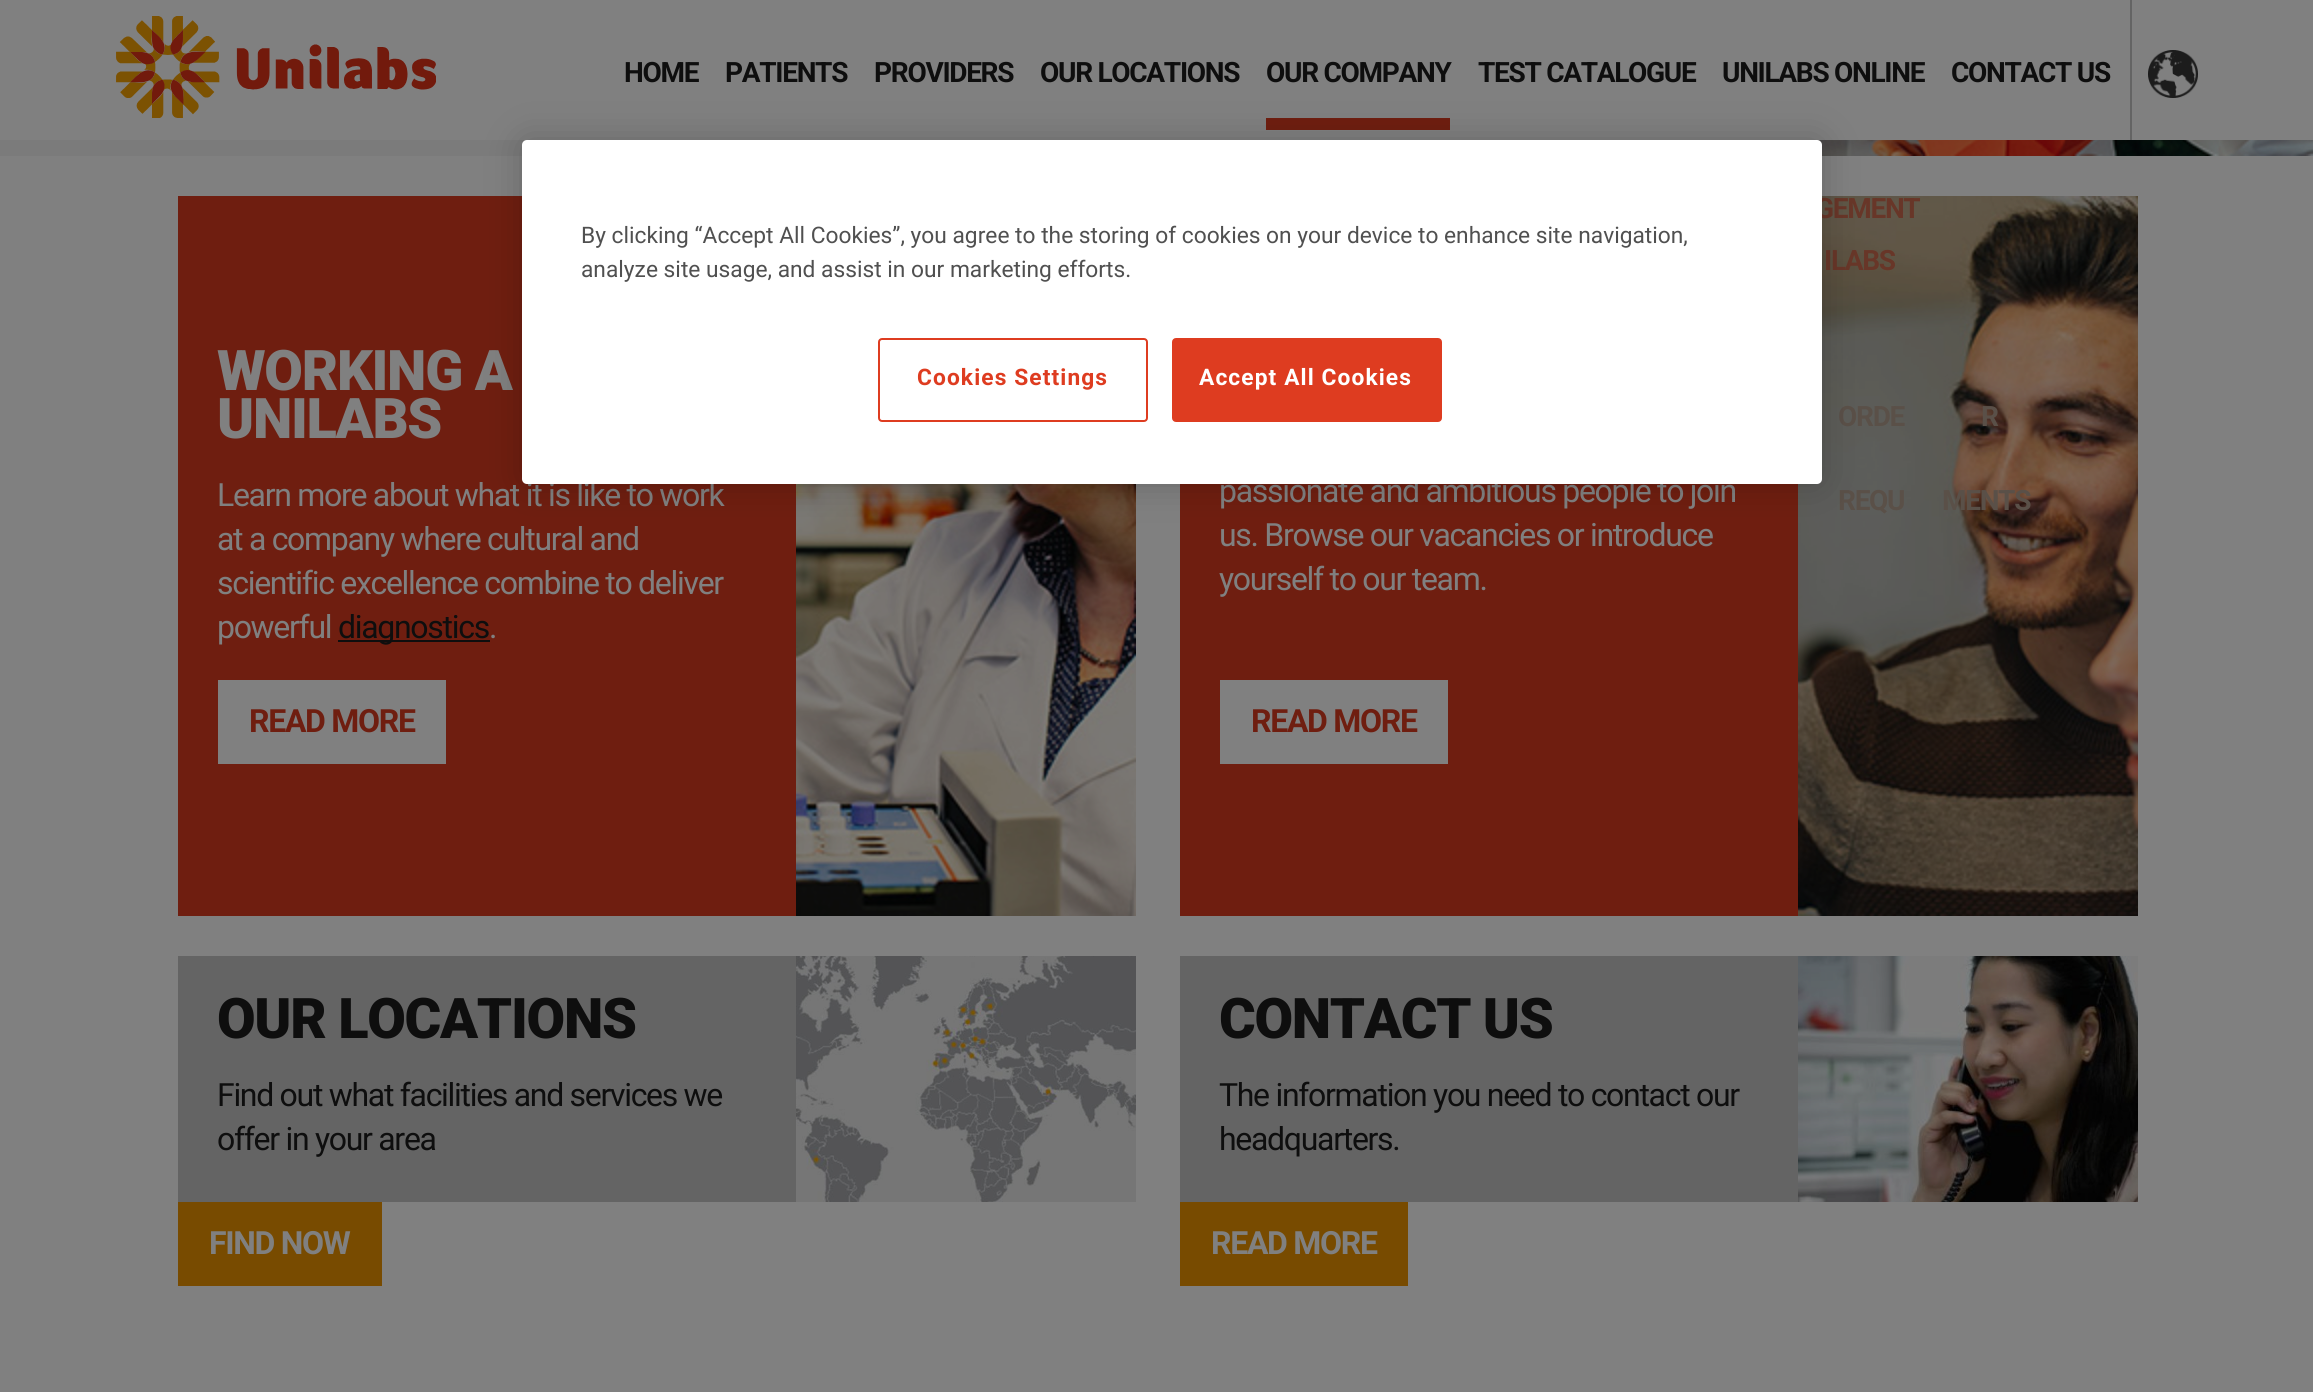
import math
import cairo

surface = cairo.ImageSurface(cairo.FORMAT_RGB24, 2313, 1392)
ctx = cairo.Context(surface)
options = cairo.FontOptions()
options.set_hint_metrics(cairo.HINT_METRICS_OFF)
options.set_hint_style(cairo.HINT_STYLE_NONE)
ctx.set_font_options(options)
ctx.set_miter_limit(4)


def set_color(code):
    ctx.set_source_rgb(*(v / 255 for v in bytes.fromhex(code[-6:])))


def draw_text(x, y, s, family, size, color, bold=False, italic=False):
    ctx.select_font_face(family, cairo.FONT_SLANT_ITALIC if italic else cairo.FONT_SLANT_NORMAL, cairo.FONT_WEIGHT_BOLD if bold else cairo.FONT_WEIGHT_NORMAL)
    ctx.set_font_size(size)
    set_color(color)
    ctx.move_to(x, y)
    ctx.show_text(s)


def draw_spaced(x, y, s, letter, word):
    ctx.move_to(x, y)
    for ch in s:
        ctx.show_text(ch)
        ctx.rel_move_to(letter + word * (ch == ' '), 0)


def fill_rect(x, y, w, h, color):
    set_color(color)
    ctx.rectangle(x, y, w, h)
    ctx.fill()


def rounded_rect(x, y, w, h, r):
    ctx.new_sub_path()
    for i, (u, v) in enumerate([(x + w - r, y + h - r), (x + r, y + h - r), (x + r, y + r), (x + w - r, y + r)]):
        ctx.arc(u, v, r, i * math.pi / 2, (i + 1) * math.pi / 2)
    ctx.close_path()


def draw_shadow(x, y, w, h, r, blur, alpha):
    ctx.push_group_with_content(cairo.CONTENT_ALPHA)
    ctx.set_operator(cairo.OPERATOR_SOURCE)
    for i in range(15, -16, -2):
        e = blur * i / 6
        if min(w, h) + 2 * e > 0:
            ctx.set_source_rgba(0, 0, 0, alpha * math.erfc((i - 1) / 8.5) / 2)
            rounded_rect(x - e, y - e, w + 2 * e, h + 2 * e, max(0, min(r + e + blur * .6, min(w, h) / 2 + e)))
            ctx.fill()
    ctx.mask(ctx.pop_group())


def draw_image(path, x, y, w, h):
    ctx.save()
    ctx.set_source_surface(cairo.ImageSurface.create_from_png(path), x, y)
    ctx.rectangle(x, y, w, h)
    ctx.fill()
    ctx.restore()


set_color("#808080")
ctx.paint()
draw_image("assets/img1.png", 116, 16, 320, 102)
fill_rect(2130, 0, 2, 140, "#646464")
ctx.select_font_face("Roboto", cairo.FONT_SLANT_NORMAL, cairo.FONT_WEIGHT_BOLD)
ctx.set_font_size(28)
set_color("#0e0e0e")
draw_spaced(624, 82, "HOME", -1.3, 0)
draw_spaced(725, 82, "PATIENTS", -1.3, 0)
draw_spaced(874, 82, "PROVIDERS", -1.3, 0)
draw_spaced(1040, 82, "OUR LOCATIONS", -1.3, 0)
fill_rect(1266, 118, 184, 12, "#6f1e10")
set_color("#0e0e0e")
draw_spaced(1266, 82, "OUR COMPANY", -1.3, 0)
draw_image("assets/img5.png", 1798, 196, 340, 720)
set_color("#683628")
draw_spaced(1815, 218, "GEMENT", -1.3, 0)
draw_spaced(1824, 270, "ILABS", -1.3, 0)
set_color("#0e0e0e")
draw_spaced(1478, 82, "TEST CATALOGUE", -1.3, 0)
set_color("#5a5048")
draw_spaced(1838, 426, "ORDE", -1.3, 0)
draw_spaced(1981, 426, "R", -1.3, 0)
draw_spaced(1838, 510, "REQU", -1.3, 0)
draw_spaced(1942, 510, "MENTS", -1.3, 0)
set_color("#0e0e0e")
draw_spaced(1722, 82, "UNILABS ONLINE", -1.3, 0)
draw_spaced(1951, 82, "CONTACT US", -1.3, 0)
draw_image("assets/img2.png", 2148, 50, 50, 48)
fill_rect(0, 140, 527, 16, "#7b7b7b")
draw_image("assets/img3.png", 1817, 140, 496, 16)
fill_rect(178, 196, 618, 720, "#6f1e10")
ctx.select_font_face("Roboto Black")
ctx.set_font_size(56)
set_color("#808080")
draw_spaced(217, 390, "WORKING A", -1.3, 0)
draw_spaced(217, 438, "UNILABS", -1.3, 0)
ctx.select_font_face("Roboto")
ctx.set_font_size(32)
draw_spaced(217, 506, "Learn more about what it is like to work", -1.3, 0)
draw_spaced(217, 550, "at a company where cultural and", -1.3, 0)
draw_spaced(217, 594, "scientific excellence combine to deliver", -1.3, 0)
draw_spaced(217, 638, "powerful", -1.3, 0)
fill_rect(338, 640, 152, 2, "#0e0e0e")
draw_spaced(338, 638, "diagnostics", -1.3, 0)
set_color("#808080")
draw_spaced(489, 638, ".", -1.3, 0)
fill_rect(218, 680, 228, 84, "#808080")
ctx.select_font_face("Roboto", cairo.FONT_SLANT_NORMAL, cairo.FONT_WEIGHT_BOLD)
set_color("#6f1e10")
draw_spaced(249, 732, "READ MORE", -1.3, 0)
draw_image("assets/img4.png", 796, 484, 340, 432)
fill_rect(1180, 484, 618, 432, "#6f1e10")
ctx.select_font_face("Roboto")
set_color("#808080")
draw_spaced(1219, 502, "passionate and ambitious people to join", -1.3, 0)
draw_spaced(1219, 546, "us. Browse our vacancies or introduce", -1.3, 0)
draw_spaced(1219, 590, "yourself to our team.", -1.3, 0)
fill_rect(1220, 680, 228, 84, "#808080")
ctx.select_font_face("Roboto", cairo.FONT_SLANT_NORMAL, cairo.FONT_WEIGHT_BOLD)
set_color("#6f1e10")
draw_spaced(1251, 732, "READ MORE", -1.3, 0)
fill_rect(178, 956, 618, 246, "#646464")
ctx.select_font_face("Roboto Black")
ctx.set_font_size(56)
set_color("#0e0e0e")
draw_spaced(217, 1038, "OUR LOCATIONS", -1.3, 0)
ctx.select_font_face("Roboto")
ctx.set_font_size(32)
draw_spaced(217, 1106, "Find out what facilities and services we", -1.3, 0)
draw_spaced(217, 1150, "offer in your area", -1.3, 0)
draw_image("assets/img6.png", 796, 956, 340, 246)
fill_rect(178, 1202, 204, 84, "#784b00")
ctx.select_font_face("Roboto", cairo.FONT_SLANT_NORMAL, cairo.FONT_WEIGHT_BOLD)
set_color("#808080")
draw_spaced(209, 1254, "FIND NOW", -1.3, 0)
fill_rect(1180, 956, 618, 246, "#646464")
ctx.select_font_face("Roboto Black")
ctx.set_font_size(56)
set_color("#0e0e0e")
draw_spaced(1219, 1038, "CONTACT US", -1.3, 0)
ctx.select_font_face("Roboto")
ctx.set_font_size(32)
draw_spaced(1219, 1106, "The information you need to contact our", -1.3, 0)
draw_spaced(1219, 1150, "headquarters.", -1.3, 0)
draw_image("assets/img7.png", 1798, 956, 340, 246)
fill_rect(1180, 1202, 228, 84, "#784b00")
ctx.select_font_face("Roboto", cairo.FONT_SLANT_NORMAL, cairo.FONT_WEIGHT_BOLD)
set_color("#808080")
draw_spaced(1211, 1254, "READ MORE", -1.3, 0)
set_color("#000000")
draw_shadow(522, 140, 1300, 344, 5, 18, 0.2)
set_color("#ffffff")
rounded_rect(522, 140, 1300, 344, 5)
ctx.fill()
draw_text(581, 243, "By clicking “Accept All Cookies”, you agree to the storing of cookies on your device to enhance site navigation,", "Roboto", 22.75, "#505050")
draw_text(581, 277, "analyze site usage, and assist in our marketing efforts.", "Roboto", 22.75, "#505050")
rounded_rect(879, 339, 268, 82, 3)
set_color("#de3c20")
ctx.stroke()
ctx.select_font_face("Roboto", cairo.FONT_SLANT_NORMAL, cairo.FONT_WEIGHT_BOLD)
draw_spaced(917, 385, "Cookies Settings", 1.1, 0)
rounded_rect(1173, 339, 268, 82, 3)
ctx.fill_preserve()
ctx.stroke()
set_color("#ffffff")
draw_spaced(1199, 385, "Accept All Cookies", 1.1, 0)
surface.write_to_png("output.png")
